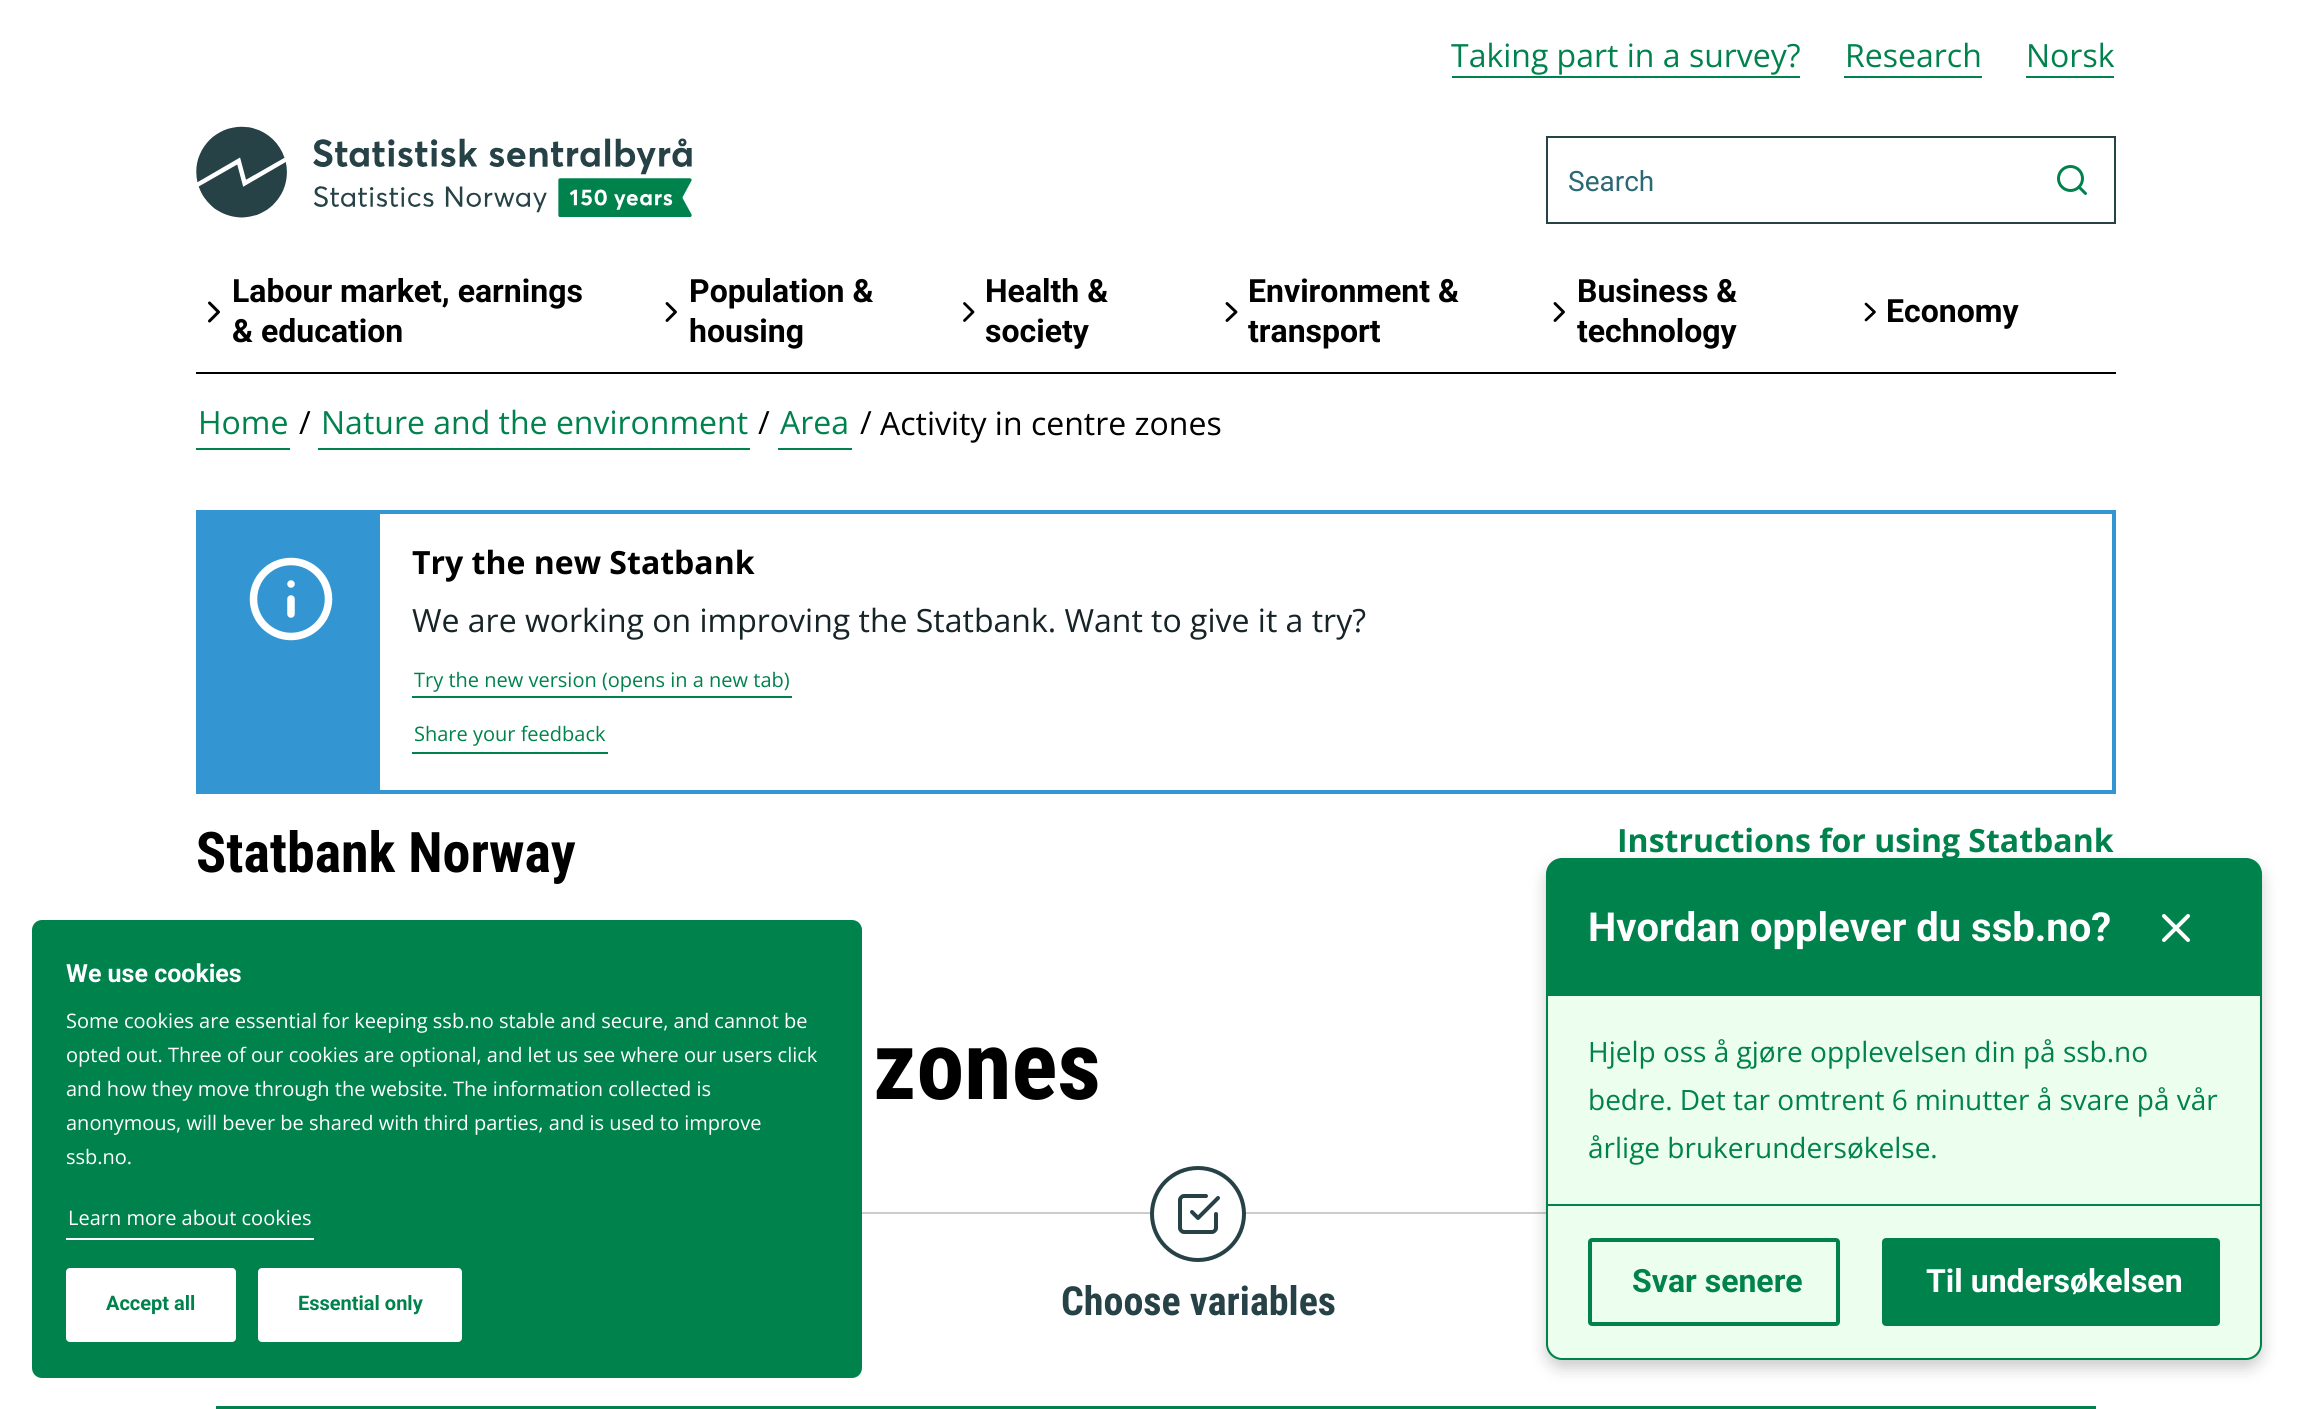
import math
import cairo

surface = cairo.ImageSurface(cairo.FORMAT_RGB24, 2311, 1409)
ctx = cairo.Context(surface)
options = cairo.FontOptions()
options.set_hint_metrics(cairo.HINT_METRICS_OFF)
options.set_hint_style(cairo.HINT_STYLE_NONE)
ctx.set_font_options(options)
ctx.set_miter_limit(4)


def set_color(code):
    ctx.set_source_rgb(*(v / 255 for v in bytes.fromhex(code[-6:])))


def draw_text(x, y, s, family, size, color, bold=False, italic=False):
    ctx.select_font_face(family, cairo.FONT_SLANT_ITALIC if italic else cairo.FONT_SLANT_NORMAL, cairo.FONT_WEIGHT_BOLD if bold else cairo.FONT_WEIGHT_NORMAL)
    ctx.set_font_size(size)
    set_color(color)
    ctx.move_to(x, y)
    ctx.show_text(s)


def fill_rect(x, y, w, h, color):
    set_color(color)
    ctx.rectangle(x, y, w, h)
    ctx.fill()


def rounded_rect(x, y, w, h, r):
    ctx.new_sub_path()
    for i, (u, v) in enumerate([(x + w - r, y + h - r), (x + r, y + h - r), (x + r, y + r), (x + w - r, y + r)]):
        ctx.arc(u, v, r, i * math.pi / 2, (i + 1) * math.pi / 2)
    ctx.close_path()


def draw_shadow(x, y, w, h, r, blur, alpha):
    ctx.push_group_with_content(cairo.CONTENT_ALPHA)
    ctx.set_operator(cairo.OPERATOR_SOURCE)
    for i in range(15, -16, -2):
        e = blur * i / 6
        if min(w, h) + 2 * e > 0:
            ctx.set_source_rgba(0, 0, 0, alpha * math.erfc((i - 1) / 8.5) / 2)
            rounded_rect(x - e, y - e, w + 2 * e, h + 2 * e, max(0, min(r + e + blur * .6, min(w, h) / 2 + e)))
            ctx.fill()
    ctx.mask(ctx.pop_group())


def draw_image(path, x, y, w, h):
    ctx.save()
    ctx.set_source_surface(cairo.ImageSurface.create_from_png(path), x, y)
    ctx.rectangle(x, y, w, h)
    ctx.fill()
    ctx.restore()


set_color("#ffffff")
ctx.paint()
draw_text(1451, 67, "Taking part in a survey?", "Open Sans", 32, "#00824d")
fill_rect(1452, 76, 348, 2, "#00824d")
draw_text(1845, 67, "Research", "Open Sans", 32, "#00824d")
fill_rect(1844, 76, 138, 2, "#00824d")
draw_text(2026, 67, "Norsk", "Open Sans", 32, "#00824d")
fill_rect(2026, 76, 88, 2, "#00824d")
draw_image("assets/img1.png", 196, 126, 496, 92)
ctx.rectangle(1547, 137, 568, 86)
set_color("#274247")
ctx.stroke()
draw_text(1568, 191, "Search", "Roboto", 28, "#2d6975")
ctx.new_path()
ctx.arc(2070.5, 178.5, 12, 0, 2 * math.pi)
set_color("#00824d")
ctx.set_line_width(3)
ctx.stroke()
ctx.new_path()
ctx.move_to(2085.5, 193.5)
ctx.line_to(2079, 187)
ctx.set_line_cap(cairo.LINE_CAP_ROUND)
ctx.set_line_join(cairo.LINE_JOIN_ROUND)
ctx.stroke()
ctx.new_path()
ctx.move_to(209.5, 321)
ctx.line_to(218.5, 312)
ctx.line_to(209.5, 303)
set_color("#000000")
ctx.stroke()
draw_text(232, 302, "Labour market, earnings", "Roboto", 32, "#000000", bold=True)
draw_text(232, 342, "& education", "Roboto", 32, "#000000", bold=True)
fill_rect(196, 372, 1920, 2, "#000000")
ctx.new_path()
ctx.move_to(667, 320.5)
ctx.line_to(675.5, 312)
ctx.line_to(667, 303.5)
ctx.set_line_width(2.9)
ctx.stroke()
draw_text(689, 302, "Population &", "Roboto", 32, "#000000", bold=True)
draw_text(689, 342, "housing", "Roboto", 32, "#000000", bold=True)
ctx.new_path()
ctx.move_to(964.5, 320.5)
ctx.line_to(973, 312)
ctx.line_to(964.5, 303.5)
ctx.set_line_width(2.8)
ctx.stroke()
draw_text(985, 302, "Health &", "Roboto", 32, "#000000", bold=True)
draw_text(985, 342, "society", "Roboto", 32, "#000000", bold=True)
ctx.new_path()
ctx.move_to(1227, 320.5)
ctx.line_to(1236, 312)
ctx.line_to(1227, 303.5)
ctx.set_line_width(2.9)
ctx.stroke()
draw_text(1248, 302, "Environment &", "Roboto", 32, "#000000", bold=True)
draw_text(1248, 342, "transport", "Roboto", 32, "#000000", bold=True)
ctx.new_path()
ctx.move_to(1555, 320.5)
ctx.line_to(1563.5, 312)
ctx.line_to(1555, 303.5)
ctx.stroke()
draw_text(1577, 302, "Business &", "Roboto", 32, "#000000", bold=True)
draw_text(1577, 342, "technology", "Roboto", 32, "#000000", bold=True)
ctx.new_path()
ctx.move_to(1866, 320)
ctx.line_to(1874.5, 312)
ctx.line_to(1866, 304)
ctx.set_line_width(2.7)
ctx.stroke()
draw_text(1886, 322, "Economy", "Roboto", 32, "#000000", bold=True)
draw_text(198, 434, "Home", "Open Sans", 32, "#00824d")
fill_rect(196, 448, 94, 2, "#00824d")
draw_text(299, 434, "/", "Open Sans", 32, "#000000")
draw_text(321, 434, "Nature and the environment", "Open Sans", 32, "#00824d")
fill_rect(318, 448, 432, 2, "#00824d")
draw_text(758, 434, "/", "Open Sans", 32, "#000000")
draw_text(780, 434, "Area", "Open Sans", 32, "#00824d")
fill_rect(778, 448, 74, 2, "#00824d")
draw_text(860, 434, "/", "Open Sans", 32, "#000000")
draw_text(880, 435, "Activity in centre zones", "Open Sans", 32, "#000000")
ctx.rectangle(198, 512, 1916, 280)
set_color("#3396d2")
ctx.set_line_width(4)
ctx.set_line_cap(cairo.LINE_CAP_BUTT)
ctx.set_line_join(cairo.LINE_JOIN_MITER)
ctx.stroke()
fill_rect(200, 514, 180, 276, "#3396d2")
ctx.arc(291, 599, 37.5, 0, 2 * math.pi)
set_color("#ffffff")
ctx.set_line_width(7.5)
ctx.stroke()
ctx.new_path()
ctx.move_to(291, 614)
ctx.line_to(291, 599)
ctx.move_to(291, 584)
ctx.line_to(291, 584)
ctx.set_line_cap(cairo.LINE_CAP_ROUND)
ctx.set_line_join(cairo.LINE_JOIN_ROUND)
ctx.stroke()
draw_text(412, 574, "Try the new Statbank", "Open Sans", 32, "#000000", bold=True)
draw_text(412, 632, "We are working on improving the Statbank. Want to give it a try?", "Open Sans", 32, "#162327")
draw_text(414, 687, "Try the new version (opens in a new tab)", "Open Sans", 20, "#00824d")
fill_rect(412, 696, 380, 2, "#00824d")
draw_text(414, 741, "Share your feedback", "Open Sans", 20, "#00824d")
fill_rect(412, 752, 196, 2, "#00824d")
draw_text(196, 872, "Statbank Norway", "Roboto Condensed", 56, "#000000", bold=True)
draw_text(1617, 852, "Instructions for using Statbank", "Open Sans", 32, "#00824d", bold=True)
draw_text(873, 1099, "zones", "Roboto Condensed", 96, "#000000", bold=True)
fill_rect(862, 1212, 289, 2, "#cccccc")
fill_rect(1245, 1212, 301, 2, "#cccccc")
ctx.new_path()
ctx.arc(1198, 1214, 46, 0, 2 * math.pi)
set_color("#274247")
ctx.set_line_width(4)
ctx.set_line_cap(cairo.LINE_CAP_BUTT)
ctx.set_line_join(cairo.LINE_JOIN_MITER)
ctx.stroke()
ctx.new_path()
ctx.move_to(1192, 1212)
ctx.line_to(1198, 1218)
ctx.line_to(1218, 1198)
ctx.move_to(1216, 1214)
ctx.line_to(1216, 1228)
ctx.curve_to(1216, 1230, 1214, 1232, 1212, 1232)
ctx.line_to(1184, 1232)
ctx.curve_to(1182, 1232, 1180, 1230, 1180, 1228)
ctx.line_to(1180, 1200)
ctx.curve_to(1180, 1198, 1182, 1196, 1184, 1196)
ctx.line_to(1206, 1196)
ctx.set_line_cap(cairo.LINE_CAP_ROUND)
ctx.set_line_join(cairo.LINE_JOIN_ROUND)
ctx.stroke()
draw_text(1061, 1315, "Choose variables", "Roboto Condensed", 40, "#274247", bold=True)
ctx.rectangle(218, 1408, 1876, 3)
set_color("#00824d")
ctx.set_line_cap(cairo.LINE_CAP_BUTT)
ctx.set_line_join(cairo.LINE_JOIN_MITER)
ctx.stroke()
rounded_rect(32, 920, 830, 458, 10)
ctx.fill()
draw_text(66, 982, "We use cookies", "Roboto", 25, "#ffffff", bold=True)
draw_text(66, 1028, "Some cookies are essential for keeping ssb.no stable and secure, and cannot be", "Open Sans", 20, "#ffffff")
draw_text(66, 1062, "opted out. Three of our cookies are optional, and let us see where our users click", "Open Sans", 20, "#ffffff")
draw_text(66, 1096, "and how they move through the website. The information collected is", "Open Sans", 20, "#ffffff")
draw_text(66, 1130, "anonymous, will bever be shared with third parties, and is used to improve", "Open Sans", 20, "#ffffff")
draw_text(66, 1164, "ssb.no.", "Open Sans", 20, "#ffffff")
draw_text(68, 1225, "Learn more about cookies", "Open Sans", 20, "#ffffff")
fill_rect(66, 1238, 248, 2, "#ffffff")
rounded_rect(66, 1268, 170, 74, 4)
ctx.fill()
draw_text(106, 1310, "Accept all", "Roboto", 20, "#00824d", bold=True)
set_color("#ffffff")
rounded_rect(258, 1268, 204, 74, 4)
ctx.fill()
draw_text(298, 1310, "Essential only", "Roboto", 20, "#00824d", bold=True)
set_color("#000000")
draw_shadow(1546, 866, 716, 502, 16, 8, 0.2)
set_color("#00824d")
rounded_rect(1547, 859, 714, 500, 15)
ctx.fill_preserve()
ctx.set_line_width(2)
ctx.stroke()
draw_text(1588, 941, "Hvordan opplever du ssb.no?", "Roboto", 40, "#ffffff", bold=True)
ctx.new_path()
ctx.move_to(2188, 916)
ctx.line_to(2164, 940)
ctx.move_to(2164, 916)
ctx.line_to(2188, 940)
ctx.set_line_width(4)
ctx.set_line_cap(cairo.LINE_CAP_ROUND)
ctx.set_line_join(cairo.LINE_JOIN_ROUND)
ctx.stroke()
fill_rect(1548, 996, 712, 208, "#ecfeed")
draw_text(1588, 1062, "Hjelp oss å gjøre opplevelsen din på ssb.no", "Open Sans", 28, "#00824d")
draw_text(1588, 1110, "bedre. Det tar omtrent 6 minutter å svare på vår", "Open Sans", 28, "#00824d")
draw_text(1588, 1158, "årlige brukerundersøkelse.", "Open Sans", 28, "#00824d")
set_color("#ecfeed")
ctx.new_path()
ctx.move_to(1548, 1204)
ctx.line_to(2260, 1204)
ctx.line_to(2260, 1344)
ctx.curve_to(2260, 1351.5, 2253.5, 1358, 2246, 1358)
ctx.line_to(1562, 1358)
ctx.curve_to(1554.5, 1358, 1548, 1351.5, 1548, 1344)
ctx.close_path()
ctx.fill()
fill_rect(1548, 1204, 712, 2, "#00824d")
rounded_rect(1590, 1240, 248, 84, 2)
ctx.set_line_cap(cairo.LINE_CAP_BUTT)
ctx.set_line_join(cairo.LINE_JOIN_MITER)
ctx.stroke()
draw_text(1632, 1292, "Svar senere", "Roboto", 32, "#00824d", bold=True)
rounded_rect(1884, 1240, 334, 84, 2)
ctx.fill_preserve()
ctx.stroke()
draw_text(1926, 1292, "Til undersøkelsen", "Roboto", 32, "#ffffff", bold=True)
surface.write_to_png("output.png")
